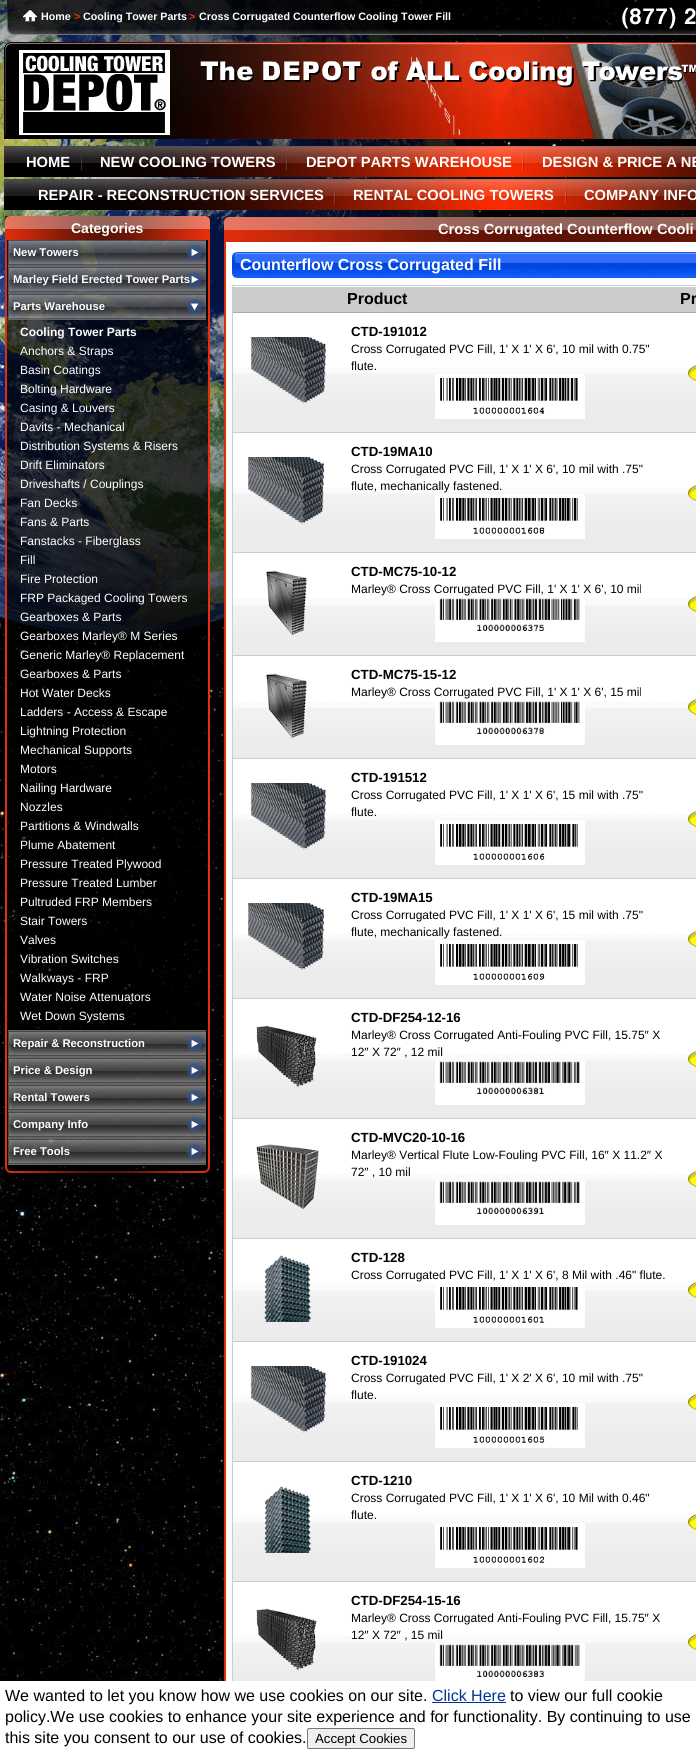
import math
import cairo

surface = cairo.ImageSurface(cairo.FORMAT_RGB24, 696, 1754)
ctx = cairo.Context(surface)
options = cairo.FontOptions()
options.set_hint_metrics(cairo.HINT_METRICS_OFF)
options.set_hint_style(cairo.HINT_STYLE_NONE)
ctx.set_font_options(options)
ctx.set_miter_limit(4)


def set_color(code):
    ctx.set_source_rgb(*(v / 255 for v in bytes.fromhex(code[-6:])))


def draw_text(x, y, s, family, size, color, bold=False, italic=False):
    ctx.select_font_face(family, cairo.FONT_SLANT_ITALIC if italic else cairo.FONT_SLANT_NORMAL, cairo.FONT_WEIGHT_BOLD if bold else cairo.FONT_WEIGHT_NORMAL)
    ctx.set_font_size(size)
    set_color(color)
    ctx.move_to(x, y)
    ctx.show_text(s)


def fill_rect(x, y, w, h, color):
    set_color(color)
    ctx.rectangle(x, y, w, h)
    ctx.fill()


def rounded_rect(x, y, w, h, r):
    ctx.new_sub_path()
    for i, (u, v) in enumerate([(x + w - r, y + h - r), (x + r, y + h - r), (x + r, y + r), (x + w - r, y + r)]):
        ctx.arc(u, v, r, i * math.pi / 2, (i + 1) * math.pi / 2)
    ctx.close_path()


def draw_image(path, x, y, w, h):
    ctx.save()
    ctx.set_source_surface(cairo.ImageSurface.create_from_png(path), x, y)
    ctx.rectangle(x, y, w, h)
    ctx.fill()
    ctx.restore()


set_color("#ffffff")
ctx.paint()
draw_image("assets/img1.png", 0, 0, 696, 1681)
draw_image("assets/img4.png", 0, 0, 475, 636)
draw_image("assets/img2.png", 7, 0, 689, 35)
draw_image("assets/img3.png", 23, 9, 14, 13)
draw_text(41, 20, "Home", "Liberation Sans", 10.7, "#ffffff", bold=True)
draw_text(74, 20, ">", "Liberation Sans", 10.7, "#f92c01", bold=True)
draw_text(83, 20, "Cooling Tower Parts", "Liberation Sans", 10.7, "#ffffff", bold=True)
draw_text(189, 20, ">", "Liberation Sans", 10.7, "#f92c01", bold=True)
draw_text(199, 20, "Cross Corrugated Counterflow Cooling Tower Fill", "Liberation Sans", 10.7, "#ffffff", bold=True)
draw_image("assets/img5.png", 4, 42, 692, 97)
draw_image("assets/img6.png", 19, 50, 151, 85)
draw_image("assets/img7.png", 4, 146, 692, 31)
draw_text(26, 167, "HOME", "Liberation Sans", 14.7, "#ffffff", bold=True)
draw_image("assets/img8.png", 81, 153, 2, 17)
draw_text(100, 167, "NEW COOLING TOWERS", "Liberation Sans", 14.7, "#ffffff", bold=True)
draw_image("assets/img9.png", 286, 153, 2, 17)
draw_text(306, 167, "DEPOT PARTS WAREHOUSE", "Liberation Sans", 14.7, "#ffffff", bold=True)
draw_image("assets/img10.png", 522, 153, 2, 17)
draw_text(542, 167, "DESIGN & PRICE A NE", "Liberation Sans", 14.7, "#ffffff", bold=True)
draw_image("assets/img7.png", 4, 179, 692, 31)
draw_text(38, 200, "REPAIR - RECONSTRUCTION SERVICES", "Liberation Sans", 14.7, "#ffffff", bold=True)
draw_image("assets/img11.png", 334, 186, 2, 17)
draw_text(353, 200, "RENTAL COOLING TOWERS", "Liberation Sans", 14.7, "#ffffff", bold=True)
draw_image("assets/img12.png", 565, 186, 2, 17)
draw_text(584, 200, "COMPANY INFO", "Liberation Sans", 14.7, "#ffffff", bold=True)
ctx.set_source_rgba(0, 0, 0, 0.7)
ctx.rectangle(5, 216, 205, 961)
ctx.fill()
draw_image("assets/img13.png", 5, 216, 7, 24)
draw_image("assets/img14.png", 12, 216, 191, 24)
draw_text(71, 233, "Categories", "Liberation Sans", 14, "#ffffff", bold=True)
draw_image("assets/img15.png", 203, 216, 7, 24)
fill_rect(5, 240, 2, 925, "#de2e0c")
draw_image("assets/img16.png", 8, 240, 198, 25)
fill_rect(8, 265, 198, 2, "#666666")
draw_image("assets/img17.png", 187, 245, 15, 15)
draw_text(13, 256, "New Towers", "Liberation Sans", 11.25, "#ffffff", bold=True)
draw_image("assets/img18.png", 8, 267, 198, 25)
fill_rect(8, 292, 198, 2, "#666666")
draw_image("assets/img19.png", 187, 272, 15, 15)
draw_text(13, 283, "Marley Field Erected Tower Parts", "Liberation Sans", 11.25, "#ffffff", bold=True)
draw_image("assets/img20.png", 8, 294, 198, 25)
fill_rect(8, 319, 198, 1, "#666666")
draw_image("assets/img21.png", 187, 299, 15, 15)
draw_text(13, 310, "Parts Warehouse", "Liberation Sans", 11.25, "#ffffff", bold=True)
draw_text(20, 336, "Cooling Tower Parts", "Liberation Sans", 12, "#ffffff", bold=True)
draw_text(20, 355, "Anchors & Straps", "Liberation Sans", 12, "#ffffff")
draw_text(20, 374, "Basin Coatings", "Liberation Sans", 12, "#ffffff")
draw_text(20, 393, "Bolting Hardware", "Liberation Sans", 12, "#ffffff")
draw_text(20, 412, "Casing & Louvers", "Liberation Sans", 12, "#ffffff")
draw_text(20, 431, "Davits - Mechanical", "Liberation Sans", 12, "#ffffff")
draw_text(20, 450, "Distribution Systems & Risers", "Liberation Sans", 12, "#ffffff")
draw_text(20, 469, "Drift Eliminators", "Liberation Sans", 12, "#ffffff")
draw_text(20, 488, "Driveshafts / Couplings", "Liberation Sans", 12, "#ffffff")
draw_text(20, 507, "Fan Decks", "Liberation Sans", 12, "#ffffff")
draw_text(20, 526, "Fans & Parts", "Liberation Sans", 12, "#ffffff")
draw_text(20, 545, "Fanstacks - Fiberglass", "Liberation Sans", 12, "#ffffff")
draw_text(20, 564, "Fill", "Liberation Sans", 12, "#ffffff")
draw_text(20, 583, "Fire Protection", "Liberation Sans", 12, "#ffffff")
draw_text(20, 602, "FRP Packaged Cooling Towers", "Liberation Sans", 12, "#ffffff")
draw_text(20, 621, "Gearboxes & Parts", "Liberation Sans", 12, "#ffffff")
draw_text(20, 640, "Gearboxes Marley® M Series", "Liberation Sans", 12, "#ffffff")
draw_text(20, 659, "Generic Marley® Replacement", "Liberation Sans", 12, "#ffffff")
draw_text(20, 678, "Gearboxes & Parts", "Liberation Sans", 12, "#ffffff")
draw_text(20, 697, "Hot Water Decks", "Liberation Sans", 12, "#ffffff")
draw_text(20, 716, "Ladders - Access & Escape", "Liberation Sans", 12, "#ffffff")
draw_text(20, 735, "Lightning Protection", "Liberation Sans", 12, "#ffffff")
draw_text(20, 754, "Mechanical Supports", "Liberation Sans", 12, "#ffffff")
draw_text(20, 773, "Motors", "Liberation Sans", 12, "#ffffff")
draw_text(20, 792, "Nailing Hardware", "Liberation Sans", 12, "#ffffff")
draw_text(20, 811, "Nozzles", "Liberation Sans", 12, "#ffffff")
draw_text(20, 830, "Partitions & Windwalls", "Liberation Sans", 12, "#ffffff")
draw_text(20, 849, "Plume Abatement", "Liberation Sans", 12, "#ffffff")
draw_text(20, 868, "Pressure Treated Plywood", "Liberation Sans", 12, "#ffffff")
draw_text(20, 887, "Pressure Treated Lumber", "Liberation Sans", 12, "#ffffff")
draw_text(20, 906, "Pultruded FRP Members", "Liberation Sans", 12, "#ffffff")
draw_text(20, 925, "Stair Towers", "Liberation Sans", 12, "#ffffff")
draw_text(20, 944, "Valves", "Liberation Sans", 12, "#ffffff")
draw_text(20, 963, "Vibration Switches", "Liberation Sans", 12, "#ffffff")
draw_text(20, 982, "Walkways - FRP", "Liberation Sans", 12, "#ffffff")
draw_text(20, 1001, "Water Noise Attenuators", "Liberation Sans", 12, "#ffffff")
draw_text(20, 1020, "Wet Down Systems", "Liberation Sans", 12, "#ffffff")
draw_image("assets/img22.png", 8, 1031, 198, 25)
fill_rect(8, 1030, 198, 1, "#666666")
fill_rect(8, 1056, 198, 2, "#666666")
draw_image("assets/img23.png", 187, 1036, 15, 15)
draw_text(13, 1047, "Repair & Reconstruction", "Liberation Sans", 11.25, "#ffffff", bold=True)
draw_image("assets/img24.png", 8, 1058, 198, 25)
fill_rect(8, 1083, 198, 2, "#666666")
draw_image("assets/img25.png", 187, 1063, 15, 15)
draw_text(13, 1074, "Price & Design", "Liberation Sans", 11.25, "#ffffff", bold=True)
draw_image("assets/img26.png", 8, 1085, 198, 25)
fill_rect(8, 1110, 198, 2, "#666666")
draw_image("assets/img27.png", 187, 1090, 15, 15)
draw_text(13, 1101, "Rental Towers", "Liberation Sans", 11.25, "#ffffff", bold=True)
draw_image("assets/img28.png", 8, 1112, 198, 25)
fill_rect(8, 1137, 198, 2, "#666666")
draw_image("assets/img29.png", 187, 1117, 15, 15)
draw_text(13, 1128, "Company Info", "Liberation Sans", 11.25, "#ffffff", bold=True)
draw_image("assets/img30.png", 8, 1139, 198, 25)
fill_rect(8, 1164, 198, 1, "#666666")
draw_image("assets/img31.png", 187, 1144, 15, 15)
draw_text(13, 1155, "Free Tools", "Liberation Sans", 11.25, "#ffffff", bold=True)
fill_rect(208, 240, 2, 925, "#e72f0d")
draw_image("assets/img32.png", 5, 1165, 7, 8)
draw_image("assets/img33.png", 12, 1171, 191, 2)
draw_image("assets/img34.png", 203, 1165, 7, 8)
draw_image("assets/img35.png", 224, 217, 472, 25)
draw_text(438, 234, "Cross Corrugated Counterflow Cooli", "Liberation Sans", 14.7, "#ffffff", bold=True)
draw_image("assets/img36.png", 224, 242, 472, 1439)
draw_image("assets/img37.png", 232, 252, 464, 26)
draw_text(240, 270, "Counterflow Cross Corrugated Fill", "Liberation Sans", 16, "#ffffff", bold=True)
fill_rect(232, 285, 464, 1, "#cccccc")
fill_rect(232, 285, 1, 28, "#cccccc")
fill_rect(233, 287, 463, 25, "#cccccc")
fill_rect(233, 312, 463, 1, "#aaaaaa")
draw_text(347, 304, "Product", "Liberation Sans", 16, "#000000", bold=True)
draw_text(680, 304, "Pr", "Liberation Sans", 16, "#000000", bold=True)
draw_image("assets/img38.png", 233, 367, 463, 65)
fill_rect(232, 432, 464, 1, "#cccccc")
fill_rect(232, 313, 1, 120, "#cccccc")
draw_image("assets/img39.png", 250, 337, 76, 67)
draw_text(351, 336, "CTD-191012", "Liberation Sans", 13.25, "#000000", bold=True)
draw_text(351, 353, "Cross Corrugated PVC Fill, 1' X 1' X 6', 10 mil with 0.75\"", "Liberation Sans", 12, "#000000")
draw_text(351, 370, "flute.", "Liberation Sans", 12, "#000000")
draw_image("assets/img40.png", 435, 374, 150, 45)
draw_image("assets/img41.png", 688, 365, 8, 16)
draw_image("assets/img38.png", 233, 487, 463, 65)
fill_rect(232, 552, 464, 1, "#cccccc")
fill_rect(232, 433, 1, 120, "#cccccc")
draw_image("assets/img42.png", 248, 457, 76, 67)
draw_text(351, 456, "CTD-19MA10", "Liberation Sans", 13.25, "#000000", bold=True)
draw_text(351, 473, "Cross Corrugated PVC Fill, 1' X 1' X 6', 10 mil with .75\"", "Liberation Sans", 12, "#000000")
draw_text(351, 490, "flute, mechanically fastened.", "Liberation Sans", 12, "#000000")
draw_image("assets/img43.png", 435, 494, 150, 45)
draw_image("assets/img41.png", 688, 485, 8, 16)
draw_image("assets/img44.png", 233, 598, 463, 57)
fill_rect(232, 655, 464, 1, "#cccccc")
fill_rect(232, 553, 1, 103, "#cccccc")
draw_image("assets/img45.png", 265, 570, 42, 65)
draw_text(351, 576, "CTD-MC75-10-12", "Liberation Sans", 13.25, "#000000", bold=True)
draw_text(351, 593, "Marley® Cross Corrugated PVC Fill, 1' X 1' X 6', 10 mil", "Liberation Sans", 12, "#000000")
draw_image("assets/img46.png", 435, 598, 150, 44)
draw_image("assets/img47.png", 688, 596, 8, 16)
draw_image("assets/img44.png", 233, 701, 463, 57)
fill_rect(232, 758, 464, 1, "#cccccc")
fill_rect(232, 656, 1, 103, "#cccccc")
draw_image("assets/img45.png", 265, 673, 42, 65)
draw_text(351, 679, "CTD-MC75-15-12", "Liberation Sans", 13.25, "#000000", bold=True)
draw_text(351, 696, "Marley® Cross Corrugated PVC Fill, 1' X 1' X 6', 15 mil", "Liberation Sans", 12, "#000000")
draw_image("assets/img48.png", 435, 701, 150, 44)
draw_image("assets/img47.png", 688, 699, 8, 16)
draw_image("assets/img38.png", 233, 813, 463, 65)
fill_rect(232, 878, 464, 1, "#cccccc")
fill_rect(232, 759, 1, 120, "#cccccc")
draw_image("assets/img39.png", 250, 783, 76, 67)
draw_text(351, 782, "CTD-191512", "Liberation Sans", 13.25, "#000000", bold=True)
draw_text(351, 799, "Cross Corrugated PVC Fill, 1' X 1' X 6', 15 mil with .75\"", "Liberation Sans", 12, "#000000")
draw_text(351, 816, "flute.", "Liberation Sans", 12, "#000000")
draw_image("assets/img49.png", 435, 820, 150, 45)
draw_image("assets/img41.png", 688, 811, 8, 16)
draw_image("assets/img38.png", 233, 933, 463, 65)
fill_rect(232, 998, 464, 1, "#cccccc")
fill_rect(232, 879, 1, 120, "#cccccc")
draw_image("assets/img42.png", 248, 903, 76, 67)
draw_text(351, 902, "CTD-19MA15", "Liberation Sans", 13.25, "#000000", bold=True)
draw_text(351, 919, "Cross Corrugated PVC Fill, 1' X 1' X 6', 15 mil with .75\"", "Liberation Sans", 12, "#000000")
draw_text(351, 936, "flute, mechanically fastened.", "Liberation Sans", 12, "#000000")
draw_image("assets/img50.png", 435, 940, 150, 45)
draw_image("assets/img41.png", 688, 931, 8, 16)
draw_image("assets/img38.png", 233, 1053, 463, 65)
fill_rect(232, 1118, 464, 1, "#cccccc")
fill_rect(232, 999, 1, 120, "#cccccc")
draw_image("assets/img51.png", 256, 1025, 61, 62)
draw_text(351, 1022, "CTD-DF254-12-16", "Liberation Sans", 13.25, "#000000", bold=True)
draw_text(351, 1039, "Marley® Cross Corrugated Anti-Fouling PVC Fill, 15.75″ X", "Liberation Sans", 12, "#000000")
draw_text(351, 1056, "12″ X 72″ , 12 mil", "Liberation Sans", 12, "#000000")
draw_image("assets/img52.png", 435, 1060, 150, 45)
draw_image("assets/img41.png", 688, 1051, 8, 16)
draw_image("assets/img38.png", 233, 1173, 463, 65)
fill_rect(232, 1238, 464, 1, "#cccccc")
fill_rect(232, 1119, 1, 120, "#cccccc")
draw_image("assets/img53.png", 256, 1144, 63, 66)
draw_text(351, 1142, "CTD-MVC20-10-16", "Liberation Sans", 13.25, "#000000", bold=True)
draw_text(351, 1159, "Marley® Vertical Flute Low-Fouling PVC Fill, 16″ X 11.2″ X", "Liberation Sans", 12, "#000000")
draw_text(351, 1176, "72″ , 10 mil", "Liberation Sans", 12, "#000000")
draw_image("assets/img54.png", 435, 1180, 150, 45)
draw_image("assets/img41.png", 688, 1171, 8, 16)
draw_image("assets/img44.png", 233, 1284, 463, 57)
fill_rect(232, 1341, 464, 1, "#cccccc")
fill_rect(232, 1239, 1, 103, "#cccccc")
draw_image("assets/img55.png", 263, 1255, 49, 67)
draw_text(351, 1262, "CTD-128", "Liberation Sans", 13.25, "#000000", bold=True)
draw_text(351, 1279, "Cross Corrugated PVC Fill, 1' X 1' X 6', 8 Mil with .46\" flute.", "Liberation Sans", 12, "#000000")
draw_image("assets/img56.png", 435, 1284, 150, 44)
draw_image("assets/img47.png", 688, 1282, 8, 16)
draw_image("assets/img38.png", 233, 1396, 463, 65)
fill_rect(232, 1461, 464, 1, "#cccccc")
fill_rect(232, 1342, 1, 120, "#cccccc")
draw_image("assets/img39.png", 250, 1366, 76, 67)
draw_text(351, 1365, "CTD-191024", "Liberation Sans", 13.25, "#000000", bold=True)
draw_text(351, 1382, "Cross Corrugated PVC Fill, 1' X 2' X 6', 10 mil with .75\"", "Liberation Sans", 12, "#000000")
draw_text(351, 1399, "flute.", "Liberation Sans", 12, "#000000")
draw_image("assets/img57.png", 435, 1403, 150, 45)
draw_image("assets/img41.png", 688, 1394, 8, 16)
draw_image("assets/img38.png", 233, 1516, 463, 65)
fill_rect(232, 1581, 464, 1, "#cccccc")
fill_rect(232, 1462, 1, 219, "#cccccc")
draw_image("assets/img58.png", 263, 1486, 49, 67)
draw_text(351, 1485, "CTD-1210", "Liberation Sans", 13.25, "#000000", bold=True)
draw_text(351, 1502, "Cross Corrugated PVC Fill, 1' X 1' X 6', 10 Mil with 0.46\"", "Liberation Sans", 12, "#000000")
draw_text(351, 1519, "flute.", "Liberation Sans", 12, "#000000")
draw_image("assets/img59.png", 435, 1523, 150, 45)
draw_image("assets/img41.png", 688, 1514, 8, 16)
draw_image("assets/img60.png", 233, 1636, 463, 45)
draw_image("assets/img51.png", 256, 1608, 61, 62)
draw_text(351, 1605, "CTD-DF254-15-16", "Liberation Sans", 13.25, "#000000", bold=True)
draw_text(351, 1622, "Marley® Cross Corrugated Anti-Fouling PVC Fill, 15.75″ X", "Liberation Sans", 12, "#000000")
draw_text(351, 1639, "12″ X 72″ , 15 mil", "Liberation Sans", 12, "#000000")
draw_image("assets/img61.png", 435, 1643, 150, 38)
draw_image("assets/img41.png", 688, 1634, 8, 16)
draw_text(5, 1701, "We wanted to let you know how we use cookies on our site.", "Liberation Sans", 16, "#000000")
draw_text(432, 1701, "Click Here", "Liberation Sans", 16, "#003399")
fill_rect(432, 1702, 74, 1, "#003399")
draw_text(510, 1701, "to view our full cookie", "Liberation Sans", 16, "#000000")
draw_text(5, 1722, "policy.We use cookies to enhance your site experience and for functionality. By continuing to use", "Liberation Sans", 16, "#000000")
draw_text(5, 1743, "this site you consent to our use of cookies.", "Liberation Sans", 16, "#000000")
set_color("#efefef")
rounded_rect(307.5, 1728.5, 107, 20, 1.5)
ctx.fill_preserve()
set_color("#767676")
ctx.set_line_width(1)
ctx.stroke()
draw_text(315, 1743, "Accept Cookies", "Liberation Sans", 13.25, "#000000")
surface.write_to_png("output.png")
